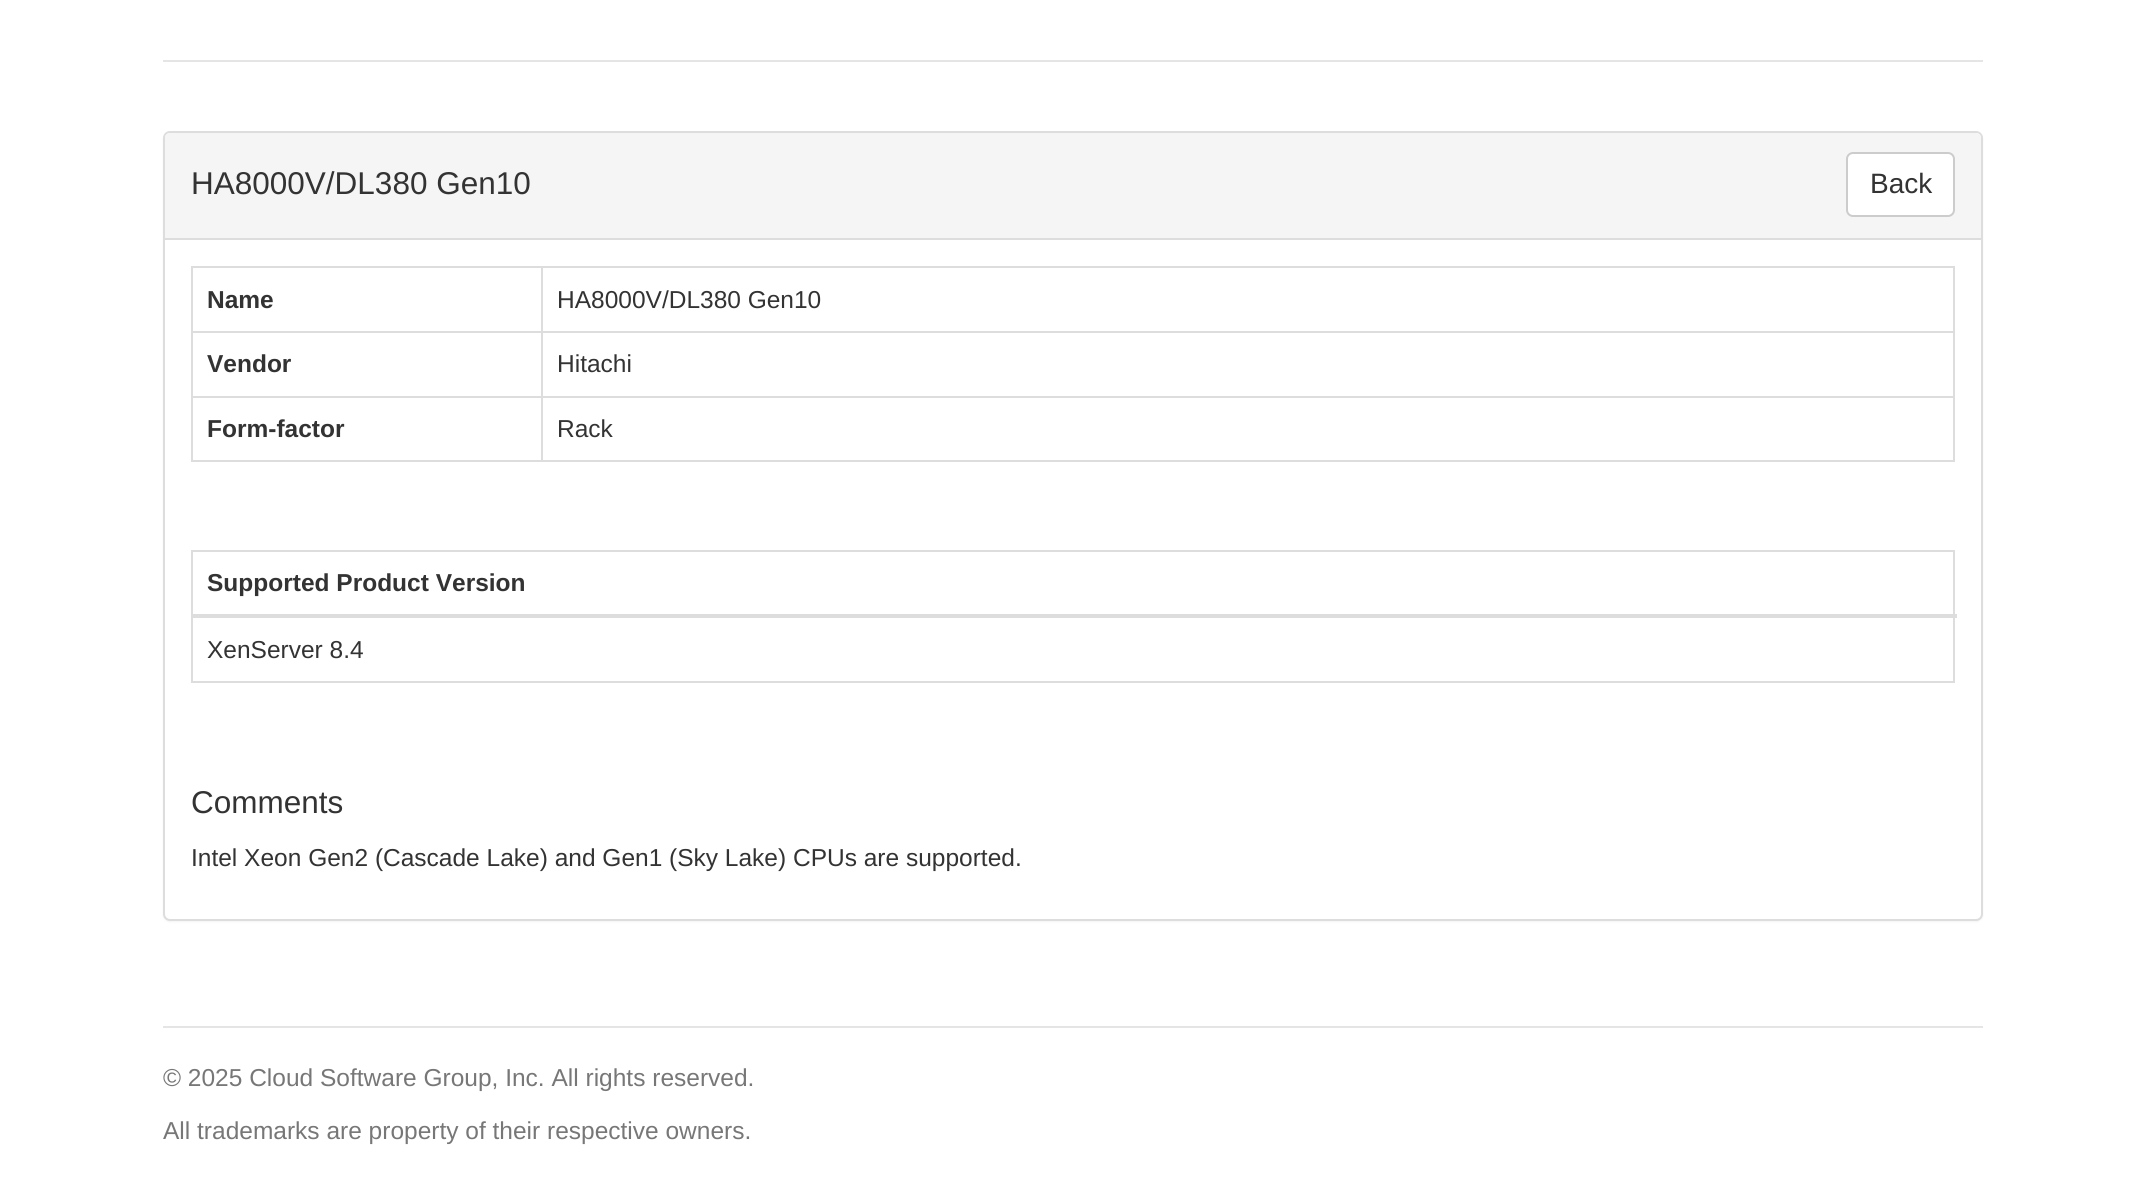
import math
import cairo

surface = cairo.ImageSurface(cairo.FORMAT_RGB24, 2145, 1199)
ctx = cairo.Context(surface)
options = cairo.FontOptions()
options.set_hint_metrics(cairo.HINT_METRICS_OFF)
options.set_hint_style(cairo.HINT_STYLE_NONE)
ctx.set_font_options(options)
ctx.set_miter_limit(4)


def set_color(code):
    ctx.set_source_rgb(*(v / 255 for v in bytes.fromhex(code[-6:])))


def draw_text(x, y, s, family, size, color, bold=False, italic=False):
    ctx.select_font_face(family, cairo.FONT_SLANT_ITALIC if italic else cairo.FONT_SLANT_NORMAL, cairo.FONT_WEIGHT_BOLD if bold else cairo.FONT_WEIGHT_NORMAL)
    ctx.set_font_size(size)
    set_color(color)
    ctx.move_to(x, y)
    ctx.show_text(s)


def fill_rect(x, y, w, h, color):
    set_color(color)
    ctx.rectangle(x, y, w, h)
    ctx.fill()


def rounded_rect(x, y, w, h, r):
    ctx.new_sub_path()
    for i, (u, v) in enumerate([(x + w - r, y + h - r), (x + r, y + h - r), (x + r, y + r), (x + w - r, y + r)]):
        ctx.arc(u, v, r, i * math.pi / 2, (i + 1) * math.pi / 2)
    ctx.close_path()


def draw_shadow(x, y, w, h, r, blur, alpha):
    ctx.push_group_with_content(cairo.CONTENT_ALPHA)
    ctx.set_operator(cairo.OPERATOR_SOURCE)
    for i in range(15, -16, -2):
        e = blur * i / 6
        if min(w, h) + 2 * e > 0:
            ctx.set_source_rgba(0, 0, 0, alpha * math.erfc((i - 1) / 8.5) / 2)
            rounded_rect(x - e, y - e, w + 2 * e, h + 2 * e, max(0, min(r + e + blur * .6, min(w, h) / 2 + e)))
            ctx.fill()
    ctx.mask(ctx.pop_group())


set_color("#ffffff")
ctx.paint()
fill_rect(163, 60, 1820, 2, "#e5e5e5")
set_color("#000000")
draw_shadow(163, 133, 1820, 789, 7, 1, 0.05)
set_color("#ffffff")
rounded_rect(164, 132, 1818, 788, 6)
ctx.fill_preserve()
set_color("#dddddd")
ctx.stroke()
set_color("#f5f5f5")
ctx.new_path()
ctx.move_to(170, 133)
ctx.line_to(1976, 133)
ctx.curve_to(1979, 133, 1981, 135, 1981, 138)
ctx.line_to(1981, 240)
ctx.line_to(165, 240)
ctx.line_to(165, 138)
ctx.curve_to(165, 135, 167, 133, 170, 133)
ctx.close_path()
ctx.fill()
fill_rect(165, 238, 1816, 2, "#dddddd")
draw_text(191, 194, "HA8000V/DL380 Gen10", "Liberation Sans", 31.5, "#333333")
set_color("#ffffff")
rounded_rect(1847, 153, 107, 63, 6)
ctx.fill_preserve()
set_color("#cccccc")
ctx.stroke()
draw_text(1870, 193, "Back", "Liberation Sans", 28, "#333333")
fill_rect(191, 266, 1764, 2, "#dddddd")
fill_rect(1953, 266, 2, 196, "#dddddd")
fill_rect(191, 460, 1764, 2, "#dddddd")
fill_rect(191, 266, 2, 196, "#dddddd")
draw_text(207, 308, "Name", "Liberation Sans", 24.5, "#333333", bold=True)
fill_rect(541, 331, 1414, 2, "#dddddd")
fill_rect(541, 396, 1414, 2, "#dddddd")
fill_rect(541, 396, 2, 66, "#dddddd")
fill_rect(191, 396, 352, 2, "#dddddd")
fill_rect(541, 331, 2, 66, "#dddddd")
fill_rect(191, 331, 352, 2, "#dddddd")
fill_rect(541, 266, 2, 67, "#dddddd")
draw_text(557, 308, "HA8000V/DL380 Gen10", "Liberation Sans", 24.5, "#333333")
draw_text(207, 372, "Vendor", "Liberation Sans", 24.5, "#333333", bold=True)
draw_text(557, 372, "Hitachi", "Liberation Sans", 24.5, "#333333")
draw_text(207, 437, "Form-factor", "Liberation Sans", 24.5, "#333333", bold=True)
draw_text(557, 437, "Rack", "Liberation Sans", 24.5, "#333333")
fill_rect(191, 550, 1764, 2, "#dddddd")
fill_rect(1953, 550, 2, 133, "#dddddd")
fill_rect(191, 681, 1764, 2, "#dddddd")
fill_rect(191, 550, 2, 133, "#dddddd")
fill_rect(191, 614, 1766, 4, "#dddddd")
draw_text(207, 591, "Supported Product Version", "Liberation Sans", 24.5, "#333333", bold=True)
draw_text(207, 658, "XenServer 8.4", "Liberation Sans", 24.5, "#333333")
draw_text(191, 813, "Comments", "Liberation Sans", 31.5, "#333333")
draw_text(191, 866, "Intel Xeon Gen2 (Cascade Lake) and Gen1 (Sky Lake) CPUs are supported.", "Liberation Sans", 24.5, "#333333")
fill_rect(163, 1026, 1820, 2, "#e5e5e5")
draw_text(163, 1086, "© 2025 Cloud Software Group, Inc. All rights reserved.", "Liberation Sans", 24.5, "#777777")
draw_text(163, 1139, "All trademarks are property of their respective owners.", "Liberation Sans", 24.5, "#777777")
surface.write_to_png("output.png")
